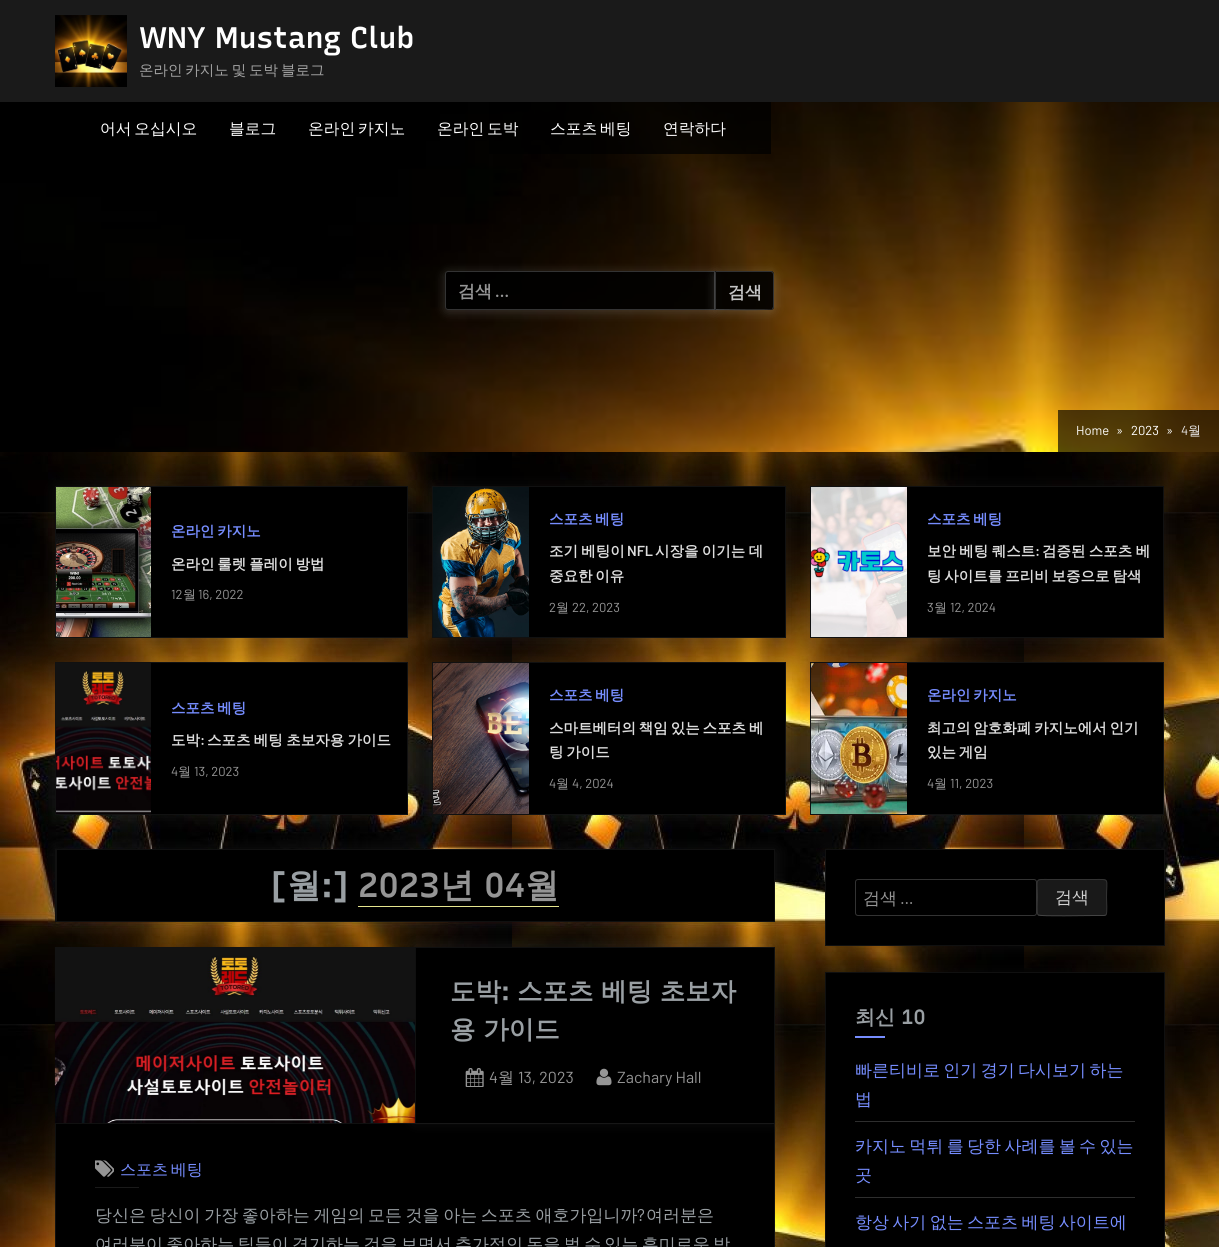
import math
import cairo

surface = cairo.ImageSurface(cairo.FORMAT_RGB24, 1219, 1247)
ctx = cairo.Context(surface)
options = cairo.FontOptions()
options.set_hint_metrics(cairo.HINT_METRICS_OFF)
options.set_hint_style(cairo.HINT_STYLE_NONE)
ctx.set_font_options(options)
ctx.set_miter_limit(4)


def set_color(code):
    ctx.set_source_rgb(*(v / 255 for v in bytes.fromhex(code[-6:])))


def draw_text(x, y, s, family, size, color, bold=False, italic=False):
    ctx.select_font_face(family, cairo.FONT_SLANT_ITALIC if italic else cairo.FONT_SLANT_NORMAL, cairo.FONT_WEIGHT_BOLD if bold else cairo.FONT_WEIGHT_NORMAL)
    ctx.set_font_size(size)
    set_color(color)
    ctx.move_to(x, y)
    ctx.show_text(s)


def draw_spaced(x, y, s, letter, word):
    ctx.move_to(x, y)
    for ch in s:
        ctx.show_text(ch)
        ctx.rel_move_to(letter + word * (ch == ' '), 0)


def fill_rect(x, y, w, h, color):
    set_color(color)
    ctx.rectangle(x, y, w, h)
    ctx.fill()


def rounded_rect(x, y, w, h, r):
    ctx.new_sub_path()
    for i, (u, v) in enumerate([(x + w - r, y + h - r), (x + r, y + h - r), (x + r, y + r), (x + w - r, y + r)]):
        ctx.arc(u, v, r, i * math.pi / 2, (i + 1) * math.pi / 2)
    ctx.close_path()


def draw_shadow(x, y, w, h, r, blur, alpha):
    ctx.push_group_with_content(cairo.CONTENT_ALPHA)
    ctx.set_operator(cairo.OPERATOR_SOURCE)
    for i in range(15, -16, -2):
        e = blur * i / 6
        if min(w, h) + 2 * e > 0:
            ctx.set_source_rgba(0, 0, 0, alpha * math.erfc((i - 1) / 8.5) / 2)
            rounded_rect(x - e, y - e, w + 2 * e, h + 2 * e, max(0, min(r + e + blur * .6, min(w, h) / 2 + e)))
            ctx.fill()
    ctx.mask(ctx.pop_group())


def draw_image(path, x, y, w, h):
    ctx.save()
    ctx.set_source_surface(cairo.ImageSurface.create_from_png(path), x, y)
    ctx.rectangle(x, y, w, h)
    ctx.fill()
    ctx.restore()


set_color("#ffffff")
ctx.paint()
draw_image("assets/img1.png", 0, 452, 1219, 795)
fill_rect(0, 0, 1219, 102, "#1a1a1a")
draw_image("assets/img2.png", 55, 15, 72, 72)
draw_image("assets/img3.png", 140, 25, 273, 31)
ctx.select_font_face("WenQuanYi Zen Hei Medium")
ctx.set_font_size(14.5)
set_color("#a3a3a3")
draw_spaced(139, 75, "온라인 카지노 및 도박 블로그", 0, -1.5)
draw_image("assets/img4.png", 0, 102, 1219, 350)
ctx.set_source_rgba(0, 0, 0, 0.75)
ctx.rectangle(489, 102, 282, 52)
ctx.fill()
ctx.set_font_size(15.75)
set_color("#ffffff")
draw_spaced(100, 134, "어서 오십시오", 0, -2)
draw_text(229, 134, "블로그", "WenQuanYi Zen Hei Medium", 15.75, "#ffffff")
draw_spaced(308, 134, "온라인 카지노", 0, -2)
draw_spaced(437, 134, "온라인 도박", 0, -2)
draw_spaced(550, 134, "스포츠 베팅", 0, -2)
draw_text(663, 134, "연락하다", "WenQuanYi Zen Hei Medium", 15.75, "#ffffff")
ctx.save()
ctx.set_fill_rule(cairo.FILL_RULE_EVEN_ODD)
ctx.new_path()
ctx.move_to(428, 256)
ctx.line_to(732, 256)
ctx.line_to(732, 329)
ctx.line_to(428, 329)
ctx.close_path()
ctx.move_to(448, 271)
ctx.line_to(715, 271)
ctx.line_to(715, 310)
ctx.line_to(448, 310)
ctx.curve_to(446.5, 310, 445, 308.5, 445, 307)
ctx.line_to(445, 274)
ctx.curve_to(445, 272.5, 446.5, 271, 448, 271)
ctx.close_path()
ctx.clip()
set_color("#ffffff")
draw_shadow(444, 272, 272, 41, 4, 5, 0.15)
ctx.restore()
ctx.set_source_rgba(0, 0, 0, 0.9)
ctx.new_path()
ctx.move_to(448, 271.5)
ctx.line_to(714.5, 271.5)
ctx.line_to(714.5, 309.5)
ctx.line_to(448, 309.5)
ctx.curve_to(446.5, 309.5, 445.5, 308.5, 445.5, 307)
ctx.line_to(445.5, 274)
ctx.curve_to(445.5, 272.5, 446.5, 271.5, 448, 271.5)
ctx.close_path()
ctx.fill_preserve()
set_color("#333333")
ctx.set_line_width(1)
ctx.stroke()
draw_text(458, 297, "검색", "WenQuanYi Zen Hei", 17, "#959595", bold=True)
draw_text(495, 297, "…", "Barlow SemiBold", 17, "#959595")
ctx.save()
ctx.set_fill_rule(cairo.FILL_RULE_EVEN_ODD)
ctx.new_path()
ctx.move_to(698, 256)
ctx.line_to(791, 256)
ctx.line_to(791, 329)
ctx.line_to(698, 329)
ctx.close_path()
ctx.move_to(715, 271)
ctx.line_to(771, 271)
ctx.curve_to(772.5, 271, 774, 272.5, 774, 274)
ctx.line_to(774, 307)
ctx.curve_to(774, 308.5, 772.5, 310, 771, 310)
ctx.line_to(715, 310)
ctx.close_path()
ctx.clip()
set_color("#ffffff")
draw_shadow(714, 272, 61, 41, 4, 5, 0.15)
ctx.restore()
ctx.set_source_rgba(0, 0, 0, 0.9)
ctx.new_path()
ctx.move_to(715, 271)
ctx.line_to(771, 271)
ctx.curve_to(772.5, 271, 774, 272.5, 774, 274)
ctx.line_to(774, 307)
ctx.curve_to(774, 308.5, 772.5, 310, 771, 310)
ctx.line_to(715, 310)
ctx.close_path()
ctx.fill()
set_color("#333333")
ctx.new_path()
ctx.move_to(716, 272)
ctx.line_to(715, 271)
ctx.line_to(772, 271)
ctx.line_to(773, 272)
ctx.line_to(773, 273)
ctx.line_to(771, 272)
ctx.close_path()
ctx.fill()
ctx.new_path()
ctx.move_to(774, 307)
ctx.line_to(774, 274)
ctx.curve_to(774, 273.5, 773.5, 272.5, 773, 272)
ctx.line_to(772.5, 273)
ctx.line_to(773, 274)
ctx.line_to(773, 307)
ctx.line_to(772, 308.5)
ctx.line_to(773, 309.5)
ctx.curve_to(773.5, 309, 774, 308, 774, 307)
ctx.close_path()
ctx.fill()
set_color("#444444")
ctx.new_path()
ctx.move_to(773, 309)
ctx.curve_to(771, 311, 722, 310, 715, 310)
ctx.line_to(716, 309)
ctx.curve_to(722, 309, 771, 310, 772, 309)
ctx.close_path()
ctx.fill()
set_color("#333333")
ctx.new_path()
ctx.move_to(715, 271.5)
ctx.line_to(715, 310)
ctx.line_to(715.5, 310)
ctx.line_to(716.5, 309)
ctx.line_to(716, 309)
ctx.line_to(716, 272.5)
ctx.close_path()
ctx.fill()
draw_text(728, 298, "검색", "WenQuanYi Zen Hei", 17, "#c5c5c5", bold=True)
ctx.set_source_rgba(0, 0, 0, 0.65)
ctx.rectangle(1058, 410, 161, 42)
ctx.fill()
draw_text(1076, 435, "Home", "Barlow", 13, "#ffffff")
draw_text(1116, 435, "»", "Barlow", 13, "#ffffff")
draw_text(1131, 435, "2023", "Barlow", 13, "#ffffff")
draw_text(1166, 435, "»", "Barlow", 13, "#ffffff")
draw_text(1181, 435, "4", "Barlow", 13, "#e7e5e5")
draw_text(1188, 435, "월", "WenQuanYi Zen Hei Medium", 13, "#e7e5e5")
set_color("#ffffff")
draw_shadow(56, 488, 353, 152, 0, 8, 0.06)
fill_rect(151, 487, 256, 150, "#000000")
ctx.rectangle(55.5, 486.5, 352, 151)
set_color("#111111")
ctx.stroke()
draw_image("assets/img5.png", 56, 487, 95, 150)
ctx.select_font_face("WenQuanYi Zen Hei", cairo.FONT_SLANT_NORMAL, cairo.FONT_WEIGHT_BOLD)
ctx.set_font_size(14.5)
set_color("#768dff")
draw_spaced(171, 536, "온라인 카지노", 0, -1.5)
set_color("#dddddd")
draw_spaced(171, 569, "온라인 룰렛 플레이 방법", 0, -1.5)
draw_text(171, 599, "12", "Barlow", 13, "#959595")
draw_text(183, 599, "월", "WenQuanYi Zen Hei Medium", 13, "#959595")
draw_text(198, 599, "16, 2022", "Barlow", 13, "#959595")
set_color("#ffffff")
draw_shadow(433, 488, 354, 152, 0, 8, 0.06)
fill_rect(529, 487, 256, 150, "#000000")
ctx.rectangle(432.5, 486.5, 353, 151)
set_color("#111111")
ctx.stroke()
draw_image("assets/img6.png", 433, 487, 96, 150)
ctx.select_font_face("WenQuanYi Zen Hei", cairo.FONT_SLANT_NORMAL, cairo.FONT_WEIGHT_BOLD)
ctx.set_font_size(14.5)
set_color("#768dff")
draw_spaced(549, 524, "스포츠 베팅", 0, -1.5)
set_color("#dddddd")
draw_spaced(549, 556, "조기 베팅이", 0, -1)
draw_text(627, 556, "NFL", "Barlow SemiBold", 14.5, "#dddddd")
ctx.select_font_face("WenQuanYi Zen Hei", cairo.FONT_SLANT_NORMAL, cairo.FONT_WEIGHT_BOLD)
draw_spaced(655, 556, "시장을 이기는 데", 0, -1)
draw_spaced(549, 581, "중요한 이유", 0, -1.5)
draw_text(549, 612, "2", "Barlow", 13, "#959595")
draw_text(556, 612, "월", "WenQuanYi Zen Hei Medium", 13, "#959595")
draw_text(572, 612, "22, 2023", "Barlow", 13, "#959595")
set_color("#ffffff")
draw_shadow(811, 488, 354, 152, 0, 8, 0.06)
fill_rect(907, 487, 256, 150, "#000000")
ctx.rectangle(810.5, 486.5, 353, 151)
set_color("#111111")
ctx.stroke()
draw_image("assets/img7.png", 811, 487, 96, 150)
ctx.select_font_face("WenQuanYi Zen Hei", cairo.FONT_SLANT_NORMAL, cairo.FONT_WEIGHT_BOLD)
ctx.set_font_size(14.5)
set_color("#768dff")
draw_spaced(927, 524, "스포츠 베팅", 0, -1.5)
set_color("#dddddd")
draw_spaced(927, 556, "보안 베팅 퀘스트", 0, -1)
draw_text(1035, 556, ":", "Barlow SemiBold", 14.5, "#dddddd")
ctx.select_font_face("WenQuanYi Zen Hei", cairo.FONT_SLANT_NORMAL, cairo.FONT_WEIGHT_BOLD)
draw_spaced(1042, 556, "검증된 스포츠 베", 0, -1)
draw_spaced(927, 581, "팅 사이트를 프리비 보증으로 탐색", 0, -1.5)
draw_text(927, 612, "3", "Barlow", 13, "#959595")
draw_text(934, 612, "월", "WenQuanYi Zen Hei Medium", 13, "#959595")
draw_text(950, 612, "12, 2024", "Barlow", 13, "#959595")
set_color("#ffffff")
draw_shadow(56, 664, 353, 153, 0, 8, 0.06)
fill_rect(151, 663, 256, 151, "#000000")
ctx.rectangle(55.5, 662.5, 352, 152)
set_color("#111111")
ctx.stroke()
draw_image("assets/img8.png", 56, 663, 95, 151)
ctx.select_font_face("WenQuanYi Zen Hei", cairo.FONT_SLANT_NORMAL, cairo.FONT_WEIGHT_BOLD)
ctx.set_font_size(14.5)
set_color("#768dff")
draw_spaced(171, 713, "스포츠 베팅", 0, -1.5)
draw_text(171, 745, "도박", "WenQuanYi Zen Hei", 14.5, "#dddddd", bold=True)
draw_text(200, 745, ":", "Barlow SemiBold", 14.5, "#dddddd")
ctx.select_font_face("WenQuanYi Zen Hei", cairo.FONT_SLANT_NORMAL, cairo.FONT_WEIGHT_BOLD)
draw_spaced(207, 745, "스포츠 베팅 초보자용 가이드", 0, -1)
draw_text(171, 776, "4", "Barlow", 13, "#959595")
draw_text(178, 776, "월", "WenQuanYi Zen Hei Medium", 13, "#959595")
draw_text(194, 776, "13, 2023", "Barlow", 13, "#959595")
set_color("#ffffff")
draw_shadow(433, 664, 354, 153, 0, 8, 0.06)
fill_rect(529, 663, 256, 151, "#000000")
ctx.rectangle(432.5, 662.5, 353, 152)
set_color("#111111")
ctx.stroke()
draw_image("assets/img9.png", 433, 663, 96, 151)
ctx.select_font_face("WenQuanYi Zen Hei", cairo.FONT_SLANT_NORMAL, cairo.FONT_WEIGHT_BOLD)
ctx.set_font_size(14.5)
set_color("#768dff")
draw_spaced(549, 700, "스포츠 베팅", 0, -1.5)
set_color("#dddddd")
draw_spaced(549, 733, "스마트베터의 책임 있는 스포츠 베", 0, -1.5)
draw_spaced(549, 757, "팅 가이드", 0, -1.5)
draw_text(549, 788, "4", "Barlow", 13, "#959595")
draw_text(556, 788, "월", "WenQuanYi Zen Hei Medium", 13, "#959595")
draw_text(572, 788, "4, 2024", "Barlow", 13, "#959595")
set_color("#ffffff")
draw_shadow(811, 664, 354, 153, 0, 8, 0.06)
fill_rect(907, 663, 256, 151, "#000000")
ctx.rectangle(810.5, 662.5, 353, 152)
set_color("#111111")
ctx.stroke()
draw_image("assets/img10.png", 811, 663, 96, 151)
ctx.select_font_face("WenQuanYi Zen Hei", cairo.FONT_SLANT_NORMAL, cairo.FONT_WEIGHT_BOLD)
ctx.set_font_size(14.5)
set_color("#768dff")
draw_spaced(927, 700, "온라인 카지노", 0, -1.5)
set_color("#dddddd")
draw_spaced(927, 733, "최고의 암호화폐 카지노에서 인기", 0, -1.5)
draw_spaced(927, 757, "있는 게임", 0, -1.5)
draw_text(927, 788, "4", "Barlow", 13, "#959595")
draw_text(934, 788, "월", "WenQuanYi Zen Hei Medium", 13, "#959595")
draw_text(950, 788, "11, 2023", "Barlow", 13, "#959595")
set_color("#ffffff")
draw_shadow(56, 851, 720, 73, 0, 8, 0.08)
fill_rect(57, 850, 717, 71, "#000000")
fill_rect(55, 849, 720, 1, "#101010")
fill_rect(774, 849, 1, 73, "#101010")
fill_rect(55, 921, 720, 1, "#101010")
fill_rect(55, 849, 2, 73, "#101010")
draw_image("assets/img11.png", 273, 871, 12, 32)
draw_text(287, 897, "월", "WenQuanYi Zen Hei", 34, "#999fa3", bold=True)
draw_image("assets/img12.png", 324, 871, 22, 32)
draw_image("assets/img13.png", 360, 872, 78, 26)
draw_text(440, 897, "년", "WenQuanYi Zen Hei", 34, "#959595", bold=True)
fill_rect(358, 906, 201, 1, "#e6e68f")
draw_image("assets/img14.png", 486, 872, 38, 26)
draw_text(525, 897, "월", "WenQuanYi Zen Hei", 34, "#959595", bold=True)
set_color("#ffffff")
draw_shadow(56, 1125, 720, 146, 0, 8, 0.06)
set_color("#000000")
ctx.rectangle(55.5, 1123.5, 719, 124)
ctx.fill_preserve()
set_color("#101010")
ctx.stroke()
set_color("#ffffff")
draw_shadow(414, 945, 360, 176, 0, 8, 0.08)
draw_image("assets/img15.png", 54, 947, 361, 176)
fill_rect(416, 948, 358, 175, "#000000")
fill_rect(415, 947, 360, 1, "#101010")
fill_rect(774, 947, 1, 176, "#101010")
fill_rect(415, 947, 1, 176, "#101010")
draw_text(450, 1000, "도박", "WenQuanYi Zen Hei", 25.5, "#999fa3", bold=True)
draw_image("assets/img16.png", 503, 986, 5, 15)
draw_text(517, 1000, "스포츠 베팅 초보자", "WenQuanYi Zen Hei", 25.5, "#999fa3", bold=True)
draw_text(450, 1038, "용 가이드", "WenQuanYi Zen Hei", 25.5, "#999fa3", bold=True)
draw_image("assets/img17.png", 465, 1068, 19, 19)
draw_text(489, 1083, "4", "Barlow", 16, "#959595")
draw_text(498, 1083, "월", "WenQuanYi Zen Hei Medium", 16, "#959595")
draw_text(518, 1083, "13, 2023", "Barlow", 16, "#959595")
draw_image("assets/img18.png", 596, 1068, 16, 18)
draw_text(617, 1083, "Zachary Hall", "Barlow", 16, "#959595")
draw_image("assets/img19.png", 95, 1160, 19, 17)
ctx.select_font_face("WenQuanYi Zen Hei Medium")
set_color("#768dff")
draw_spaced(120, 1175, "스포츠 베팅", 0, -2)
fill_rect(95, 1187, 44, 1, "#1a1a1a")
ctx.set_font_size(17)
set_color("#999fa3")
draw_spaced(95, 1221, "당신은 당신이 가장 좋아하는 게임의 모든 것을 아는 스포츠 애호가입니까", 0, -1.5)
draw_text(637, 1221, "?", "Barlow", 17, "#999fa3")
draw_text(646, 1221, "여러분은", "WenQuanYi Zen Hei Medium", 17, "#999fa3")
draw_spaced(95, 1250, "여러분이 좋아하는 팀들이 경기하는 것을 보면서 추가적인 돈을 벌 수 있는 흥미로운 방", 0, -1.75)
set_color("#ffffff")
draw_shadow(826, 851, 340, 97, 0, 8, 0.04)
set_color("#000000")
ctx.rectangle(825.5, 849.5, 339, 96)
ctx.fill_preserve()
set_color("#101010")
ctx.stroke()
rounded_rect(855.5, 879.5, 181, 36, 2.5)
set_color("#333333")
ctx.stroke()
draw_text(863, 904, "검색", "WenQuanYi Zen Hei Medium", 17, "#959595")
draw_text(900, 904, "…", "Barlow", 17, "#959595")
set_color("#191919")
rounded_rect(1037, 879, 70, 37, 3)
ctx.fill()
ctx.new_path()
ctx.move_to(1106, 915)
ctx.line_to(1104, 915.5)
ctx.line_to(1093.5, 915.5)
ctx.curve_to(1087, 915.5, 1040.5, 916.5, 1038.5, 915)
ctx.line_to(1038, 915)
set_color("#444444")
ctx.stroke()
ctx.new_path()
ctx.move_to(1038, 915)
ctx.curve_to(1036.5, 913, 1037.5, 900.5, 1037.5, 897.5)
ctx.curve_to(1037.5, 877.5, 1033.5, 879.5, 1050.5, 879.5)
ctx.line_to(1093.5, 879.5)
ctx.curve_to(1110.5, 879.5, 1106.5, 877.5, 1106.5, 897.5)
ctx.curve_to(1106.5, 900.5, 1107.5, 913, 1106, 915)
set_color("#333333")
ctx.stroke()
draw_text(1055, 903, "검색", "WenQuanYi Zen Hei Medium", 17, "#d1d1d1")
set_color("#ffffff")
draw_shadow(826, 974, 340, 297, 0, 8, 0.04)
set_color("#000000")
ctx.rectangle(825.5, 972.5, 339, 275)
ctx.fill_preserve()
set_color("#101010")
ctx.stroke()
draw_text(855, 1024, "최신", "WenQuanYi Zen Hei", 20, "#999fa3", bold=True)
draw_image("assets/img20.png", 902, 1009, 23, 16)
fill_rect(855, 1036, 30, 2, "#768dff")
fill_rect(855, 1121, 280, 1, "#2e2e2e")
ctx.select_font_face("WenQuanYi Zen Hei Medium")
ctx.set_font_size(17)
set_color("#768dff")
draw_spaced(855, 1076, "빠른티비로 인기 경기 다시보기 하는", 0, -1.75)
draw_text(855, 1105, "법", "WenQuanYi Zen Hei Medium", 17, "#768dff")
fill_rect(855, 1197, 280, 1, "#2e2e2e")
set_color("#768dff")
draw_spaced(855, 1152, "카지노 먹튀 를 당한 사례를 볼 수 있는", 0, -1.75)
draw_text(855, 1181, "곳", "WenQuanYi Zen Hei Medium", 17, "#768dff")
draw_spaced(855, 1228, "항상 사기 없는 스포츠 베팅 사이트에", 0, -1.75)
surface.write_to_png("output.png")
